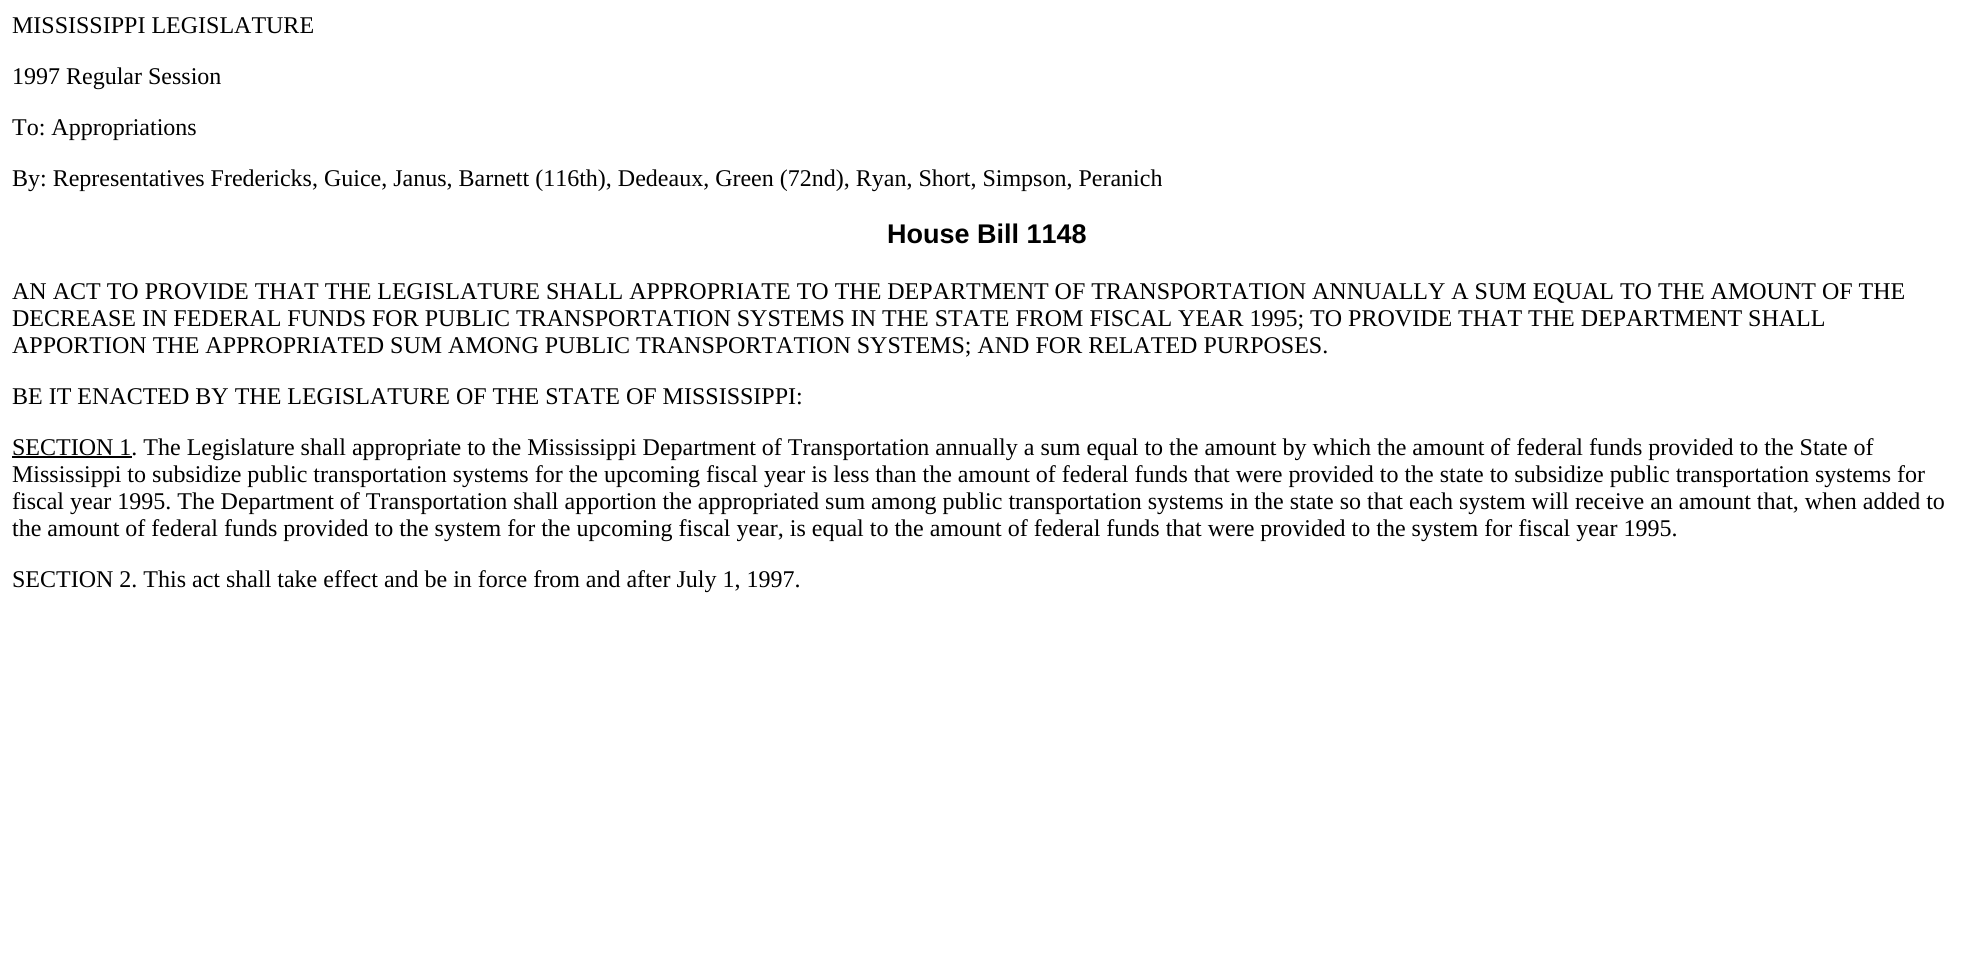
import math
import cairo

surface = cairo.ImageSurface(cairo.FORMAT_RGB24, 1973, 972)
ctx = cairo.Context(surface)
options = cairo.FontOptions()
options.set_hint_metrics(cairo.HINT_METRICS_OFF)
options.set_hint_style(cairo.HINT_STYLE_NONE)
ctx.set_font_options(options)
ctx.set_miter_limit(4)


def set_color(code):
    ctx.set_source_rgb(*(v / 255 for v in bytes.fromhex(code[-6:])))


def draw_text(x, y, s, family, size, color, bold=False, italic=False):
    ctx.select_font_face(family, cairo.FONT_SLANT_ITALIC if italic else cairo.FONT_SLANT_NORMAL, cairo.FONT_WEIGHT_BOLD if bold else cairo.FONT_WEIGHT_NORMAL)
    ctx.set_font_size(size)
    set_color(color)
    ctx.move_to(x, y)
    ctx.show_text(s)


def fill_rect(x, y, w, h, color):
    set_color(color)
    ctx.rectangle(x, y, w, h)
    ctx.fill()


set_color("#ffffff")
ctx.paint()
draw_text(12, 33, "MISSISSIPPI LEGISLATURE", "Liberation Serif", 24, "#000000")
draw_text(12, 84, "1997 Regular Session", "Liberation Serif", 24, "#000000")
draw_text(12, 135, "To: Appropriations", "Liberation Serif", 24, "#000000")
draw_text(12, 186, "By: Representatives Fredericks, Guice, Janus, Barnett (116th), Dedeaux, Green (72nd), Ryan, Short, Simpson, Peranich", "Liberation Serif", 24, "#000000")
draw_text(887, 243, "House Bill 1148", "Liberation Sans", 27, "#000000", bold=True)
draw_text(12, 299, "AN ACT TO PROVIDE THAT THE LEGISLATURE SHALL APPROPRIATE TO THE DEPARTMENT OF TRANSPORTATION ANNUALLY A SUM EQUAL TO THE AMOUNT OF THE", "Liberation Serif", 24, "#000000")
draw_text(12, 326, "DECREASE IN FEDERAL FUNDS FOR PUBLIC TRANSPORTATION SYSTEMS IN THE STATE FROM FISCAL YEAR 1995; TO PROVIDE THAT THE DEPARTMENT SHALL", "Liberation Serif", 24, "#000000")
draw_text(12, 353, "APPORTION THE APPROPRIATED SUM AMONG PUBLIC TRANSPORTATION SYSTEMS; AND FOR RELATED PURPOSES.", "Liberation Serif", 24, "#000000")
draw_text(12, 404, "BE IT ENACTED BY THE LEGISLATURE OF THE STATE OF MISSISSIPPI:", "Liberation Serif", 24, "#000000")
fill_rect(12, 456, 120, 2, "#000000")
draw_text(12, 455, "SECTION 1. The Legislature shall appropriate to the Mississippi Department of Transportation annually a sum equal to the amount by which the amount of federal funds provided to the State of", "Liberation Serif", 24, "#000000")
draw_text(12, 482, "Mississippi to subsidize public transportation systems for the upcoming fiscal year is less than the amount of federal funds that were provided to the state to subsidize public transportation systems for", "Liberation Serif", 24, "#000000")
draw_text(12, 509, "fiscal year 1995. The Department of Transportation shall apportion the appropriated sum among public transportation systems in the state so that each system will receive an amount that, when added to", "Liberation Serif", 24, "#000000")
draw_text(12, 536, "the amount of federal funds provided to the system for the upcoming fiscal year, is equal to the amount of federal funds that were provided to the system for fiscal year 1995.", "Liberation Serif", 24, "#000000")
draw_text(12, 587, "SECTION 2. This act shall take effect and be in force from and after July 1, 1997.", "Liberation Serif", 24, "#000000")
surface.write_to_png("output.png")
